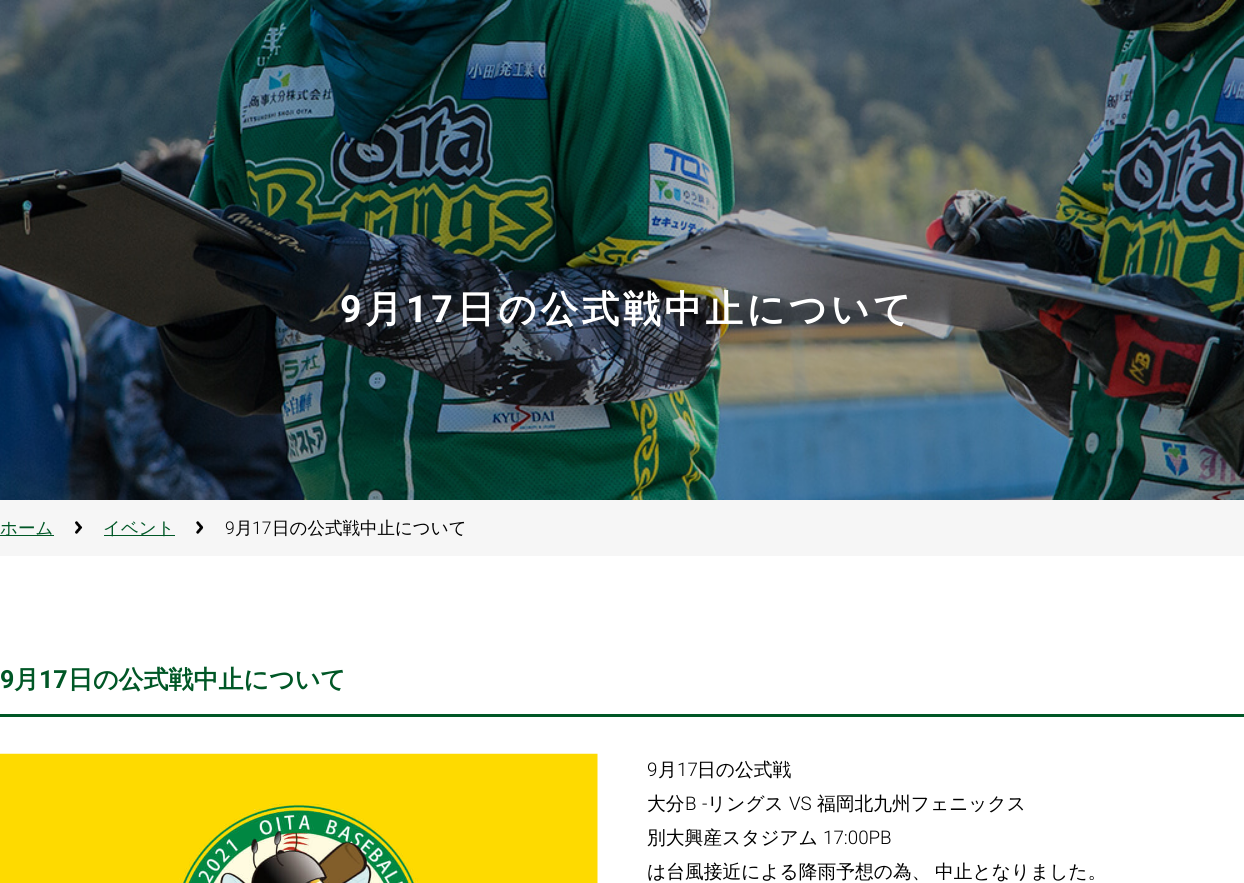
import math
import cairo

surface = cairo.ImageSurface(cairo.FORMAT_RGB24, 1244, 883)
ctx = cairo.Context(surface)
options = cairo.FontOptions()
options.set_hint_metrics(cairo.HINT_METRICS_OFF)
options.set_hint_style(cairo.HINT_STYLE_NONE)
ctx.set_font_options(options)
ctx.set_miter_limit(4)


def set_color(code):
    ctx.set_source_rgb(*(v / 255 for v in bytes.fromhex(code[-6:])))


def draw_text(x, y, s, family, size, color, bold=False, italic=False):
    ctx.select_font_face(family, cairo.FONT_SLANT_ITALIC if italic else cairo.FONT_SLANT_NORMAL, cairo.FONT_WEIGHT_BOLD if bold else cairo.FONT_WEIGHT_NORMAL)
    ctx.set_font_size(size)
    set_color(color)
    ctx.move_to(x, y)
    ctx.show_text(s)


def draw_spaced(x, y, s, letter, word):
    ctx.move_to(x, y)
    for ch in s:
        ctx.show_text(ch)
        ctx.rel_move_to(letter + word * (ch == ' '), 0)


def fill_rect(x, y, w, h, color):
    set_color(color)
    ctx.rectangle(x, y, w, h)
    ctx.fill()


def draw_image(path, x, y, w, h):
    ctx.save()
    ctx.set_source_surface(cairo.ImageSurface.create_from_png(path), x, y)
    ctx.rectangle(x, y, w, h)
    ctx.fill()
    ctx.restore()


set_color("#ffffff")
ctx.paint()
draw_image("assets/img1.png", 0, 0, 1244, 500)
ctx.select_font_face("Roboto", cairo.FONT_SLANT_NORMAL, cairo.FONT_WEIGHT_BOLD)
ctx.set_font_size(37.5)
set_color("#ffffff")
draw_spaced(340, 322, "9", 3.75, 0)
ctx.select_font_face("WenQuanYi Zen Hei", cairo.FONT_SLANT_NORMAL, cairo.FONT_WEIGHT_BOLD)
draw_spaced(365, 322, "月", 3.75, 0)
ctx.select_font_face("Roboto", cairo.FONT_SLANT_NORMAL, cairo.FONT_WEIGHT_BOLD)
draw_spaced(406, 322, "17", 3.75, 0)
ctx.select_font_face("WenQuanYi Zen Hei", cairo.FONT_SLANT_NORMAL, cairo.FONT_WEIGHT_BOLD)
draw_spaced(457, 322, "日の公式戦中止について", 3.75, 0)
fill_rect(0, 500, 1244, 56, "#f6f6f6")
fill_rect(0, 535, 54, 1, "#005726")
draw_text(0, 534, "ホーム", "WenQuanYi Zen Hei Medium", 17.5, "#005726")
draw_image("assets/img2.png", 75, 521, 8, 13)
fill_rect(104, 535, 71, 1, "#005726")
draw_text(103, 534, "イベント", "WenQuanYi Zen Hei Medium", 17.5, "#005726")
draw_image("assets/img3.png", 196, 521, 8, 13)
draw_text(225, 534, "9", "Roboto Light", 17.5, "#000000")
draw_text(235, 534, "月", "WenQuanYi Zen Hei Medium", 17.5, "#000000")
draw_text(252, 534, "17", "Roboto Light", 17.5, "#000000")
draw_text(272, 534, "日の公式戦中止について", "WenQuanYi Zen Hei Medium", 17.5, "#000000")
fill_rect(0, 714, 1244, 3, "#005726")
draw_text(0, 688, "9", "Roboto", 25, "#005726", bold=True)
draw_text(14, 688, "月", "WenQuanYi Zen Hei", 25, "#005726", bold=True)
draw_text(39, 688, "17", "Roboto", 25, "#005726", bold=True)
draw_text(68, 688, "日の公式戦中止について", "WenQuanYi Zen Hei", 25, "#005726", bold=True)
draw_image("assets/img4.png", 0, 753, 598, 130)
draw_text(647, 776, "9", "Roboto Light", 18.75, "#000000")
draw_text(658, 776, "月", "WenQuanYi Zen Hei Medium", 18.75, "#000000")
draw_text(677, 776, "17", "Roboto Light", 18.75, "#000000")
draw_text(697, 776, "日の公式戦", "WenQuanYi Zen Hei Medium", 18.75, "#000000")
draw_text(647, 810, "大分", "WenQuanYi Zen Hei Medium", 18.75, "#000000")
ctx.select_font_face("Roboto Light")
draw_spaced(685, 810, "B -", 0, 1)
draw_text(707, 810, "リングス", "WenQuanYi Zen Hei Medium", 18.75, "#000000")
draw_text(789, 810, "VS", "Roboto Light", 18.75, "#000000")
draw_text(817, 810, "福岡北九州フェニックス", "WenQuanYi Zen Hei Medium", 18.75, "#000000")
draw_text(647, 844, "別大興産スタジアム", "WenQuanYi Zen Hei Medium", 18.75, "#000000")
draw_text(823, 844, "17:00PB", "Roboto Light", 18.75, "#000000")
ctx.select_font_face("WenQuanYi Zen Hei Medium")
draw_spaced(647, 878, "は台風接近による降雨予想の為、 中止となりました。", 0, -1)
surface.write_to_png("output.png")
